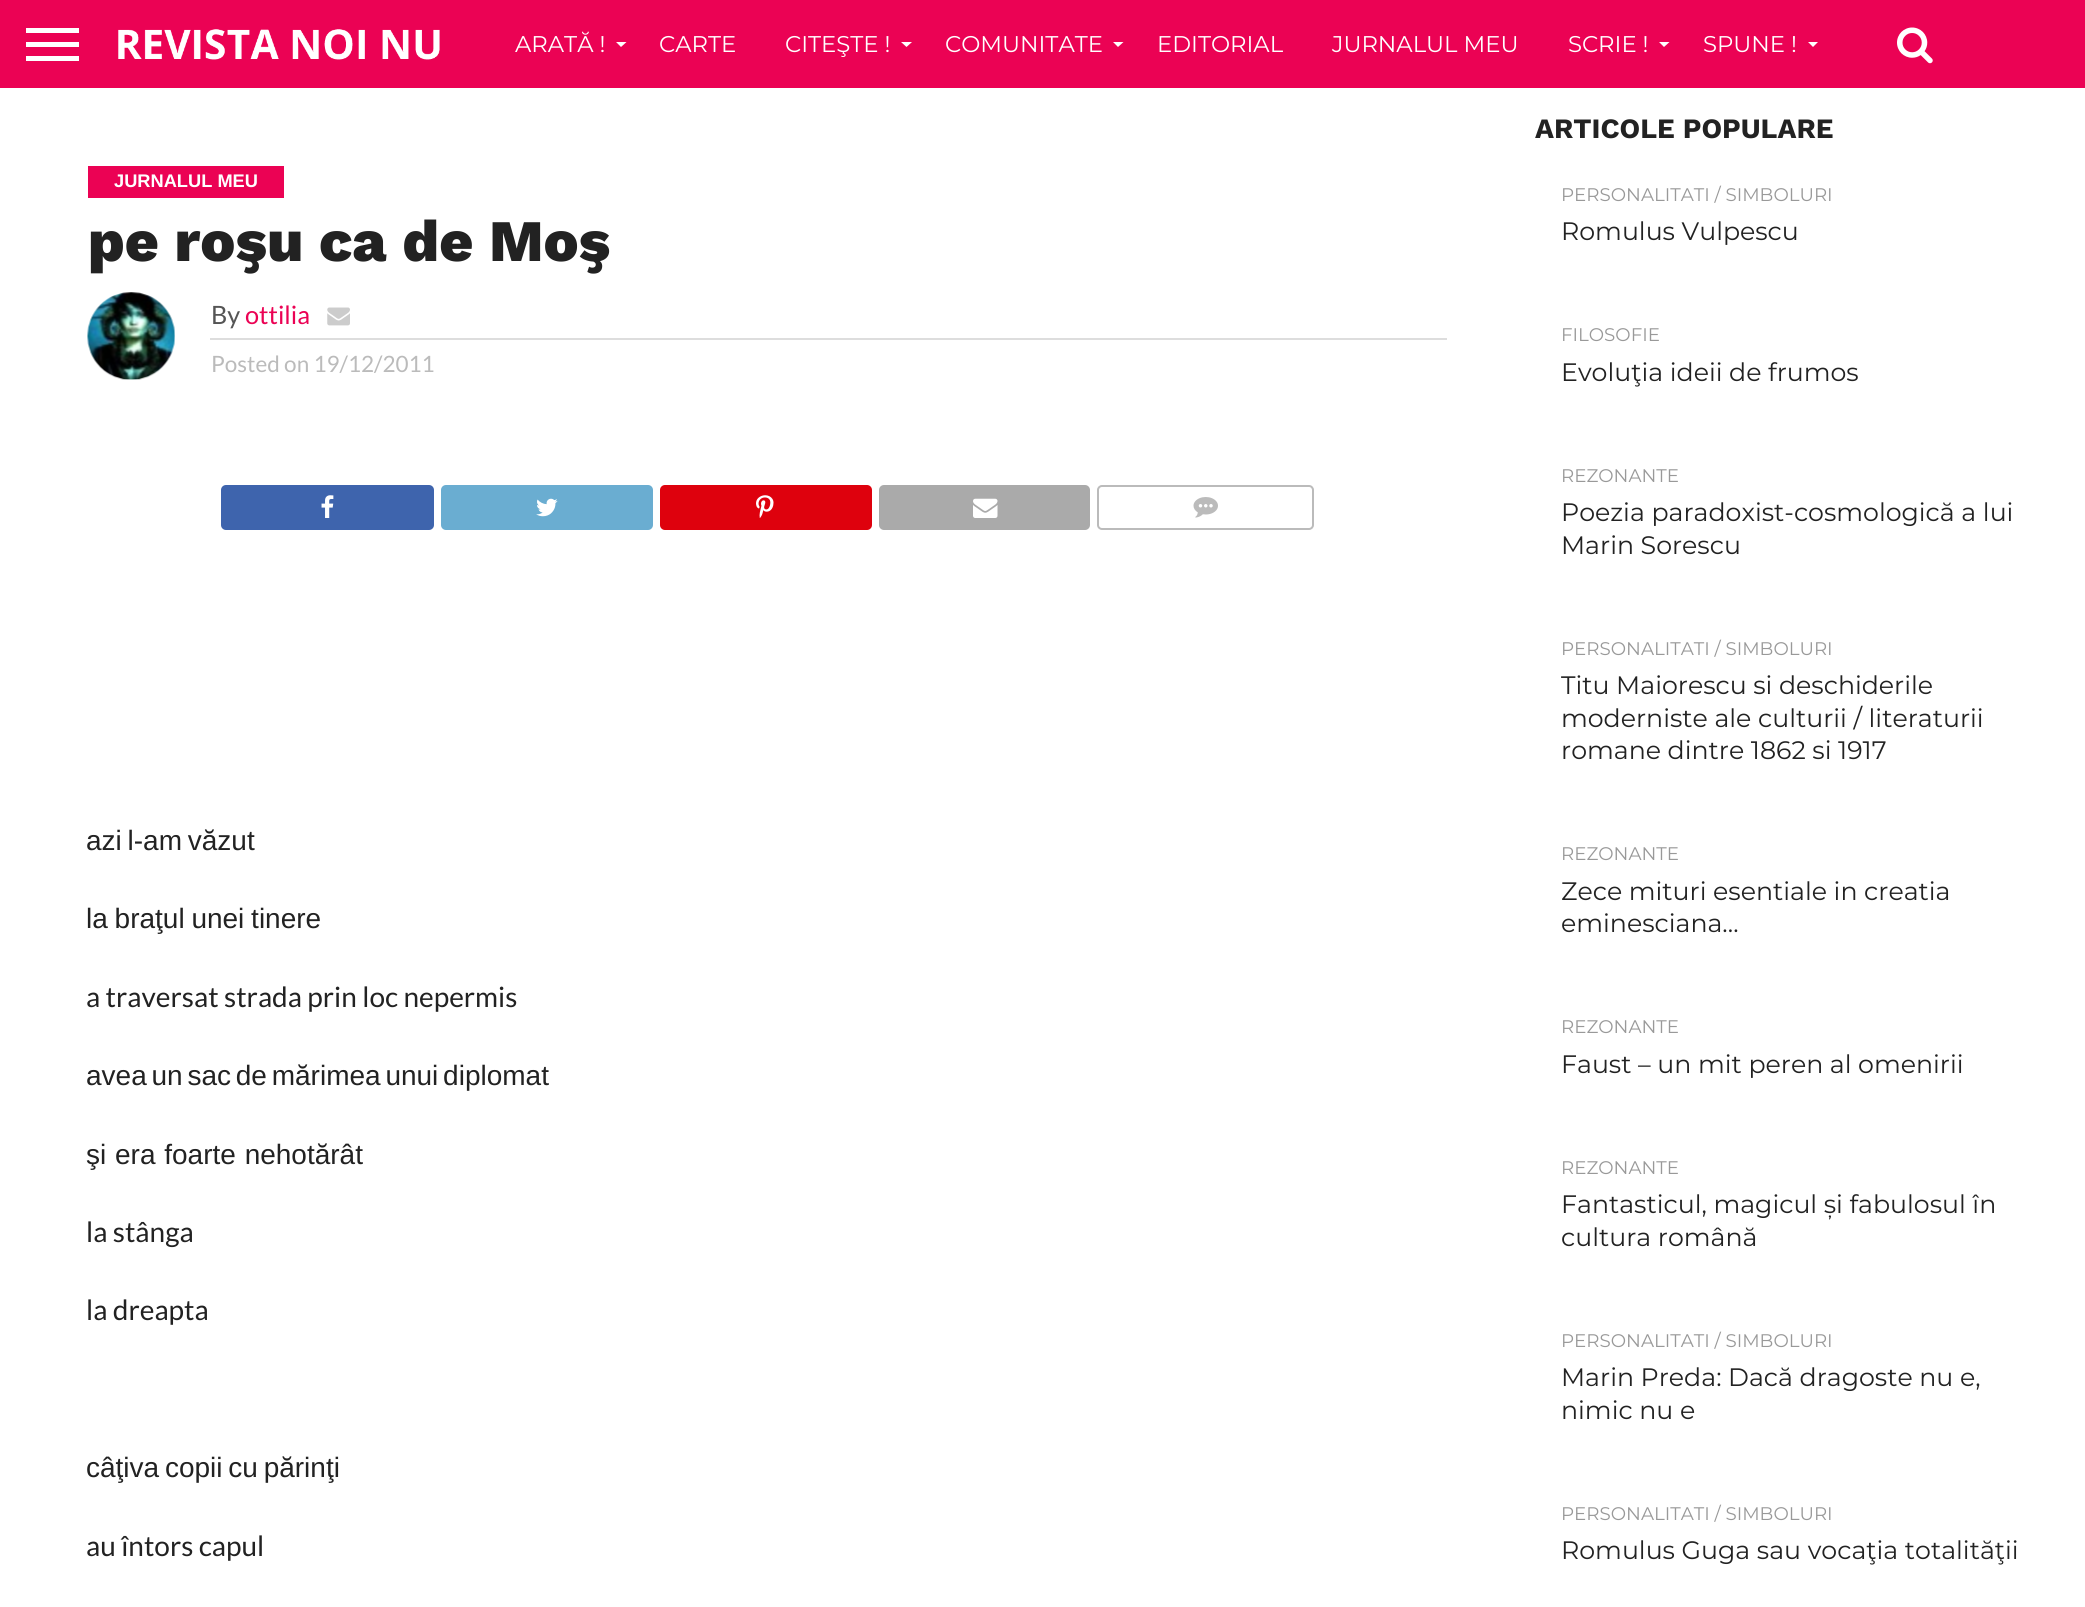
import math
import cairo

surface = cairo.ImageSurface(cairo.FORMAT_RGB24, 2085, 1607)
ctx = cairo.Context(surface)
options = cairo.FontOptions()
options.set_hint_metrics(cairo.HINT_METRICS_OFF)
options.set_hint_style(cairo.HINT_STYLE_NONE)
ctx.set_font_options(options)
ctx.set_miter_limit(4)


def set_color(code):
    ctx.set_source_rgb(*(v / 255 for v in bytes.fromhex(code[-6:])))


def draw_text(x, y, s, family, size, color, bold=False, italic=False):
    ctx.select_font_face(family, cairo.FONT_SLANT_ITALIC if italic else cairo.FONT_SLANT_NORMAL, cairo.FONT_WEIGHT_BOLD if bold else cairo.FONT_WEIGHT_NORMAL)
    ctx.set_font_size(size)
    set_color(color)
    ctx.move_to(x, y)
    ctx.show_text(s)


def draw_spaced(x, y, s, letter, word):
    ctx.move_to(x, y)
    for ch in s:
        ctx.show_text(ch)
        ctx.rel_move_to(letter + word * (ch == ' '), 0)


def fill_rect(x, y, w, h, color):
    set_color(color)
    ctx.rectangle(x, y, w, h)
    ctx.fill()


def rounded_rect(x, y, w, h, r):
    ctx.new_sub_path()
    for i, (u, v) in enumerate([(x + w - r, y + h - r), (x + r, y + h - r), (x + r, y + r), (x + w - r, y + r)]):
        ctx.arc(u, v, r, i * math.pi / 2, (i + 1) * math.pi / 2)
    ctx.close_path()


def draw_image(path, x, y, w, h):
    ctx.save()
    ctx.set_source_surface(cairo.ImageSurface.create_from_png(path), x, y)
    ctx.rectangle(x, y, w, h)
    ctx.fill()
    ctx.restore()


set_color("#ffffff")
ctx.paint()
fill_rect(0, 0, 2085, 88, "#eb0254")
fill_rect(26, 28, 53, 5, "#ffffff")
fill_rect(26, 42, 53, 5, "#ffffff")
fill_rect(26, 56, 53, 5, "#ffffff")
draw_image("assets/img1.png", 118, 29, 322, 31)
draw_text(515, 52, "ARATĂ !", "Montserrat", 22.75, "#ffffff")
ctx.new_path()
ctx.move_to(616, 42)
ctx.line_to(626.5, 42)
ctx.line_to(621, 47)
ctx.close_path()
ctx.fill()
draw_text(659, 52, "CARTE", "Montserrat", 22.75, "#ffffff")
draw_text(785, 52, "CITEŞTE !", "Montserrat", 22.75, "#ffffff")
ctx.new_path()
ctx.move_to(901, 42)
ctx.line_to(912, 42)
ctx.line_to(906.5, 47)
ctx.close_path()
ctx.fill()
draw_text(945, 52, "COMUNITATE", "Montserrat", 22.75, "#ffffff")
ctx.new_path()
ctx.move_to(1113, 42)
ctx.line_to(1123.5, 42)
ctx.line_to(1118, 47)
ctx.close_path()
ctx.fill()
draw_text(1157, 52, "EDITORIAL", "Montserrat", 22.75, "#ffffff")
draw_text(1332, 52, "JURNALUL MEU", "Montserrat", 22.75, "#ffffff")
draw_text(1568, 52, "SCRIE !", "Montserrat", 22.75, "#ffffff")
ctx.new_path()
ctx.move_to(1659, 42)
ctx.line_to(1669.5, 42)
ctx.line_to(1664, 47)
ctx.close_path()
ctx.fill()
draw_text(1703, 52, "SPUNE !", "Montserrat", 22.75, "#ffffff")
ctx.new_path()
ctx.move_to(1808, 42)
ctx.line_to(1818, 42)
ctx.line_to(1813, 47)
ctx.close_path()
ctx.fill()
draw_image("assets/img2.png", 1897, 27, 36, 37)
fill_rect(88, 166, 196, 32, "#eb0254")
draw_text(114, 187, "JURNALUL MEU", "Liberation Sans", 18.25, "#ffffff", bold=True)
draw_text(88, 261, "pe roşu ca de Moş", "Work Sans ExtraBold", 58.75, "#222222")
draw_image("assets/img3.png", 87, 292, 88, 88)
fill_rect(210, 338, 1237, 2, "#dddddd")
draw_text(211, 324, "By", "Lato", 25.25, "#555555")
draw_text(245, 324, "ottilia", "Lato", 25.25, "#eb0254")
draw_image("assets/img4.png", 327, 307, 23, 19)
draw_text(211, 372, "Posted on 19/12/2011", "Lato", 22.5, "#bbbbbb")
set_color("#3e64ad")
rounded_rect(221, 485, 213, 45, 5)
ctx.fill()
draw_image("assets/img5.png", 321, 495, 13, 23)
set_color("#6aadd1")
rounded_rect(441, 485, 212, 45, 5)
ctx.fill()
draw_image("assets/img6.png", 536, 498, 22, 19)
set_color("#de010d")
rounded_rect(660, 485, 212, 45, 5)
ctx.fill()
draw_image("assets/img7.png", 756, 495, 18, 23)
set_color("#aaaaaa")
rounded_rect(879, 485, 211, 45, 5)
ctx.fill()
draw_image("assets/img8.png", 973, 498, 25, 20)
rounded_rect(1098, 486, 215, 43, 4)
set_color("#bbbbbb")
ctx.stroke()
draw_image("assets/img9.png", 1193, 497, 25, 21)
ctx.select_font_face("Liberation Sans")
ctx.set_font_size(28)
set_color("#222222")
draw_spaced(86, 850, "azi l-am văzut", 0, -2)
draw_spaced(86, 928, "la braţul unei tinere", 0, -1)
draw_text(86, 1007, "a traversat strada prin loc nepermis", "Lato", 28, "#222222")
ctx.select_font_face("Liberation Sans")
draw_spaced(86, 1085, "avea un sac de mărimea unui diplomat", 0, -3)
draw_spaced(86, 1164, "şi era foarte nehotărât", 0, 1)
draw_text(86, 1242, "la stânga", "Lato", 28, "#222222")
draw_text(86, 1320, "la dreapta", "Lato", 28, "#222222")
ctx.select_font_face("Liberation Sans")
draw_spaced(86, 1477, "câţiva copii cu părinţi", 0, -2)
draw_text(86, 1556, "au întors capul", "Lato", 28, "#222222")
draw_text(1535, 138, "ARTICOLE POPULARE", "Work Sans", 28, "#222222", bold=True)
draw_text(1561, 201, "PERSONALITATI / SIMBOLURI", "Montserrat", 18.25, "#999999")
draw_text(1561, 240, "Romulus Vulpescu", "Montserrat", 25.25, "#222222")
draw_text(1561, 341, "FILOSOFIE", "Montserrat", 18.25, "#999999")
draw_text(1561, 381, "Evoluţia ideii de frumos", "Montserrat", 25.25, "#222222")
draw_text(1561, 482, "REZONANTE", "Montserrat", 18.25, "#999999")
draw_text(1561, 521, "Poezia paradoxist-cosmologică a lui", "Montserrat", 25.25, "#222222")
draw_text(1561, 554, "Marin Sorescu", "Montserrat", 25.25, "#222222")
draw_text(1561, 655, "PERSONALITATI / SIMBOLURI", "Montserrat", 18.25, "#999999")
draw_text(1561, 694, "Titu Maiorescu si deschiderile", "Montserrat", 25.25, "#222222")
draw_text(1561, 727, "moderniste ale culturii / literaturii", "Montserrat", 25.25, "#222222")
draw_text(1561, 759, "romane dintre 1862 si 1917", "Montserrat", 25.25, "#222222")
draw_text(1561, 860, "REZONANTE", "Montserrat", 18.25, "#999999")
draw_text(1561, 900, "Zece mituri esentiale in creatia", "Montserrat", 25.25, "#222222")
draw_text(1561, 932, "eminesciana…", "Montserrat", 25.25, "#222222")
draw_text(1561, 1033, "REZONANTE", "Montserrat", 18.25, "#999999")
draw_text(1561, 1073, "Faust – un mit peren al omenirii", "Montserrat", 25.25, "#222222")
draw_text(1561, 1174, "REZONANTE", "Montserrat", 18.25, "#999999")
draw_text(1561, 1213, "Fantasticul, magicul și fabulosul în", "Montserrat", 25.25, "#222222")
draw_text(1561, 1246, "cultura română", "Montserrat", 25.25, "#222222")
draw_text(1561, 1347, "PERSONALITATI / SIMBOLURI", "Montserrat", 18.25, "#999999")
draw_text(1561, 1386, "Marin Preda: Dacă dragoste nu e,", "Montserrat", 25.25, "#222222")
draw_text(1561, 1419, "nimic nu e", "Montserrat", 25.25, "#222222")
draw_text(1561, 1520, "PERSONALITATI / SIMBOLURI", "Montserrat", 18.25, "#999999")
draw_text(1561, 1559, "Romulus Guga sau vocaţia totalităţii", "Montserrat", 25.25, "#222222")
surface.write_to_png("output.png")
